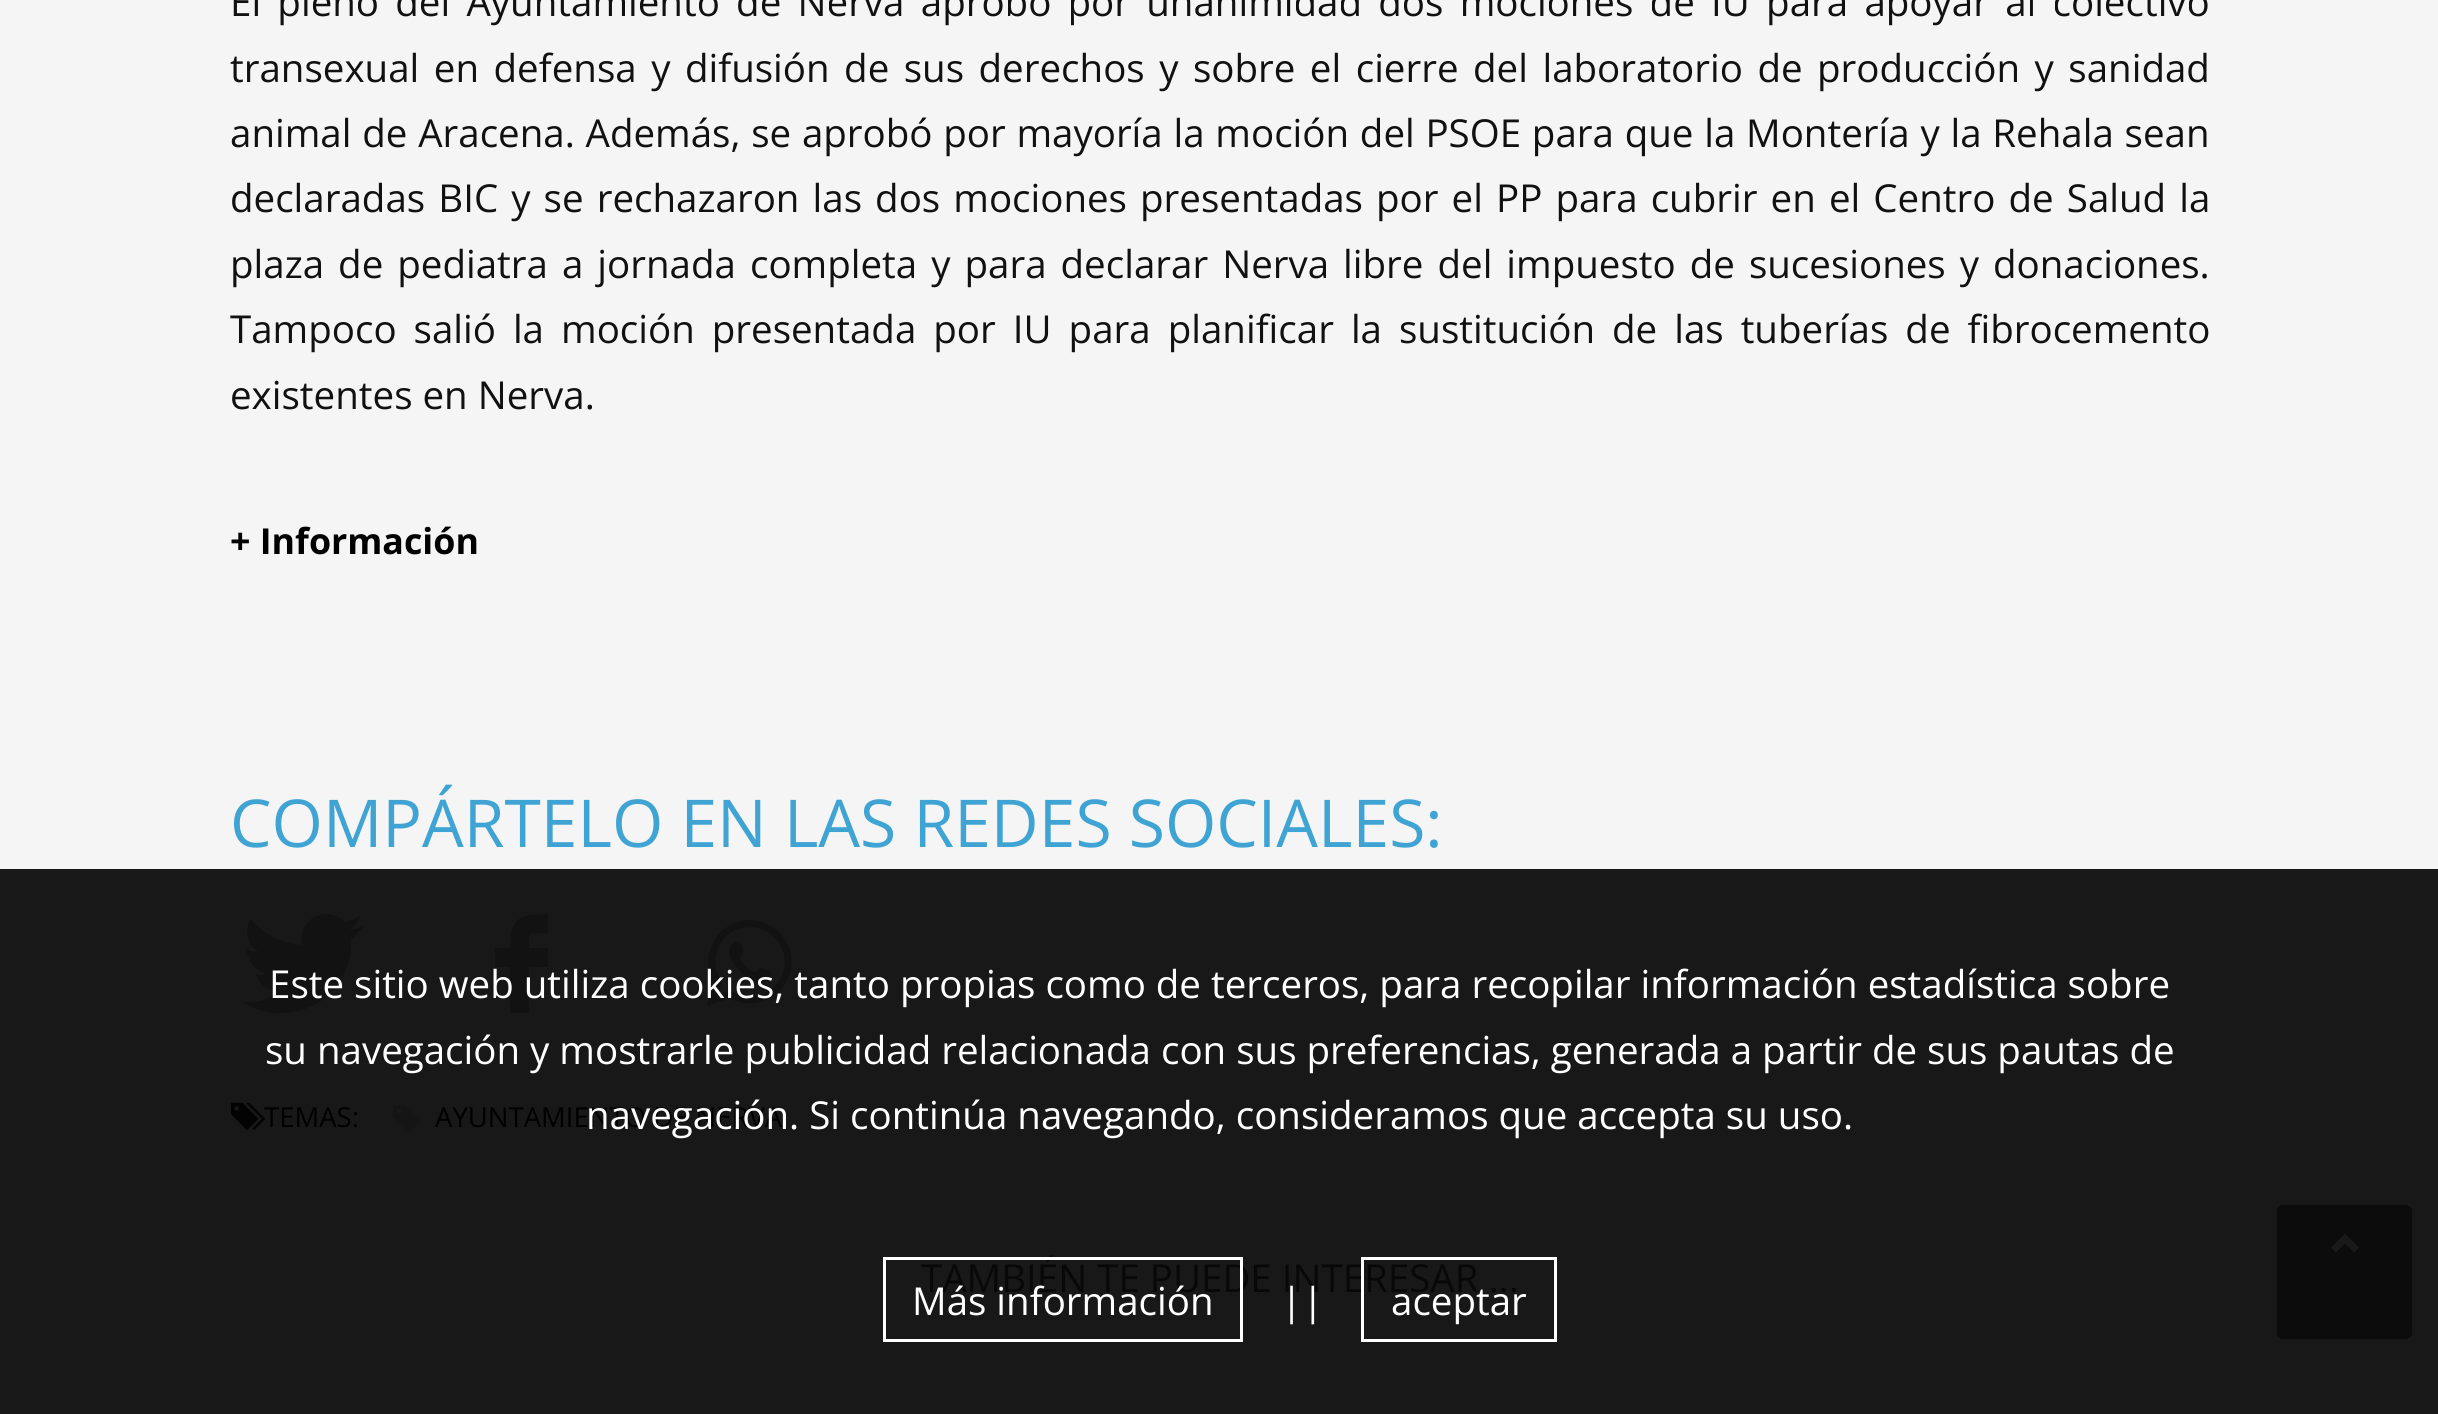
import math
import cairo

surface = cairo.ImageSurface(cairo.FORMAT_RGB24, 2438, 1414)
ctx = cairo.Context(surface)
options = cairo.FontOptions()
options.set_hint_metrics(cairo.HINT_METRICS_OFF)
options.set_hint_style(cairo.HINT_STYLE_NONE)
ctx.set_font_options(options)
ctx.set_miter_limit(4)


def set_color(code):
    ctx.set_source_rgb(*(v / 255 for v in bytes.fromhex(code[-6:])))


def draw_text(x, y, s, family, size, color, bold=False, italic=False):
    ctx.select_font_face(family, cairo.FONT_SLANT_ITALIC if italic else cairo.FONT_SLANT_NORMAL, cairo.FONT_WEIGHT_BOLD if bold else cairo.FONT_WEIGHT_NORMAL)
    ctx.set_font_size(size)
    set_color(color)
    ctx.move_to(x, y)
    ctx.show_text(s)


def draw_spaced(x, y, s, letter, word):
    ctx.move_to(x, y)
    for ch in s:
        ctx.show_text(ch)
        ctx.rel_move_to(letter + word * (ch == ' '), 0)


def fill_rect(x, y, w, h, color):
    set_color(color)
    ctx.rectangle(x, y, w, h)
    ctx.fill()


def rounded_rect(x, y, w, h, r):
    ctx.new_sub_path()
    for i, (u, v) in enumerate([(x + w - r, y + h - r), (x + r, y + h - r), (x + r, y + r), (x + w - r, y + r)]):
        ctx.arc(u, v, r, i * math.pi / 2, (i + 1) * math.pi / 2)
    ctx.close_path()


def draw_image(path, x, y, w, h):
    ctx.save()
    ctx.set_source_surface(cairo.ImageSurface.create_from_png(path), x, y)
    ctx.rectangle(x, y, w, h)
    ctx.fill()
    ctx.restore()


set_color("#f5f5f5")
ctx.paint()
fill_rect(0, 869, 2438, 545, "#181818")
ctx.select_font_face("Open Sans")
ctx.set_font_size(38.5)
set_color("#111111")
draw_spaced(230, 16, "El pleno del Ayuntamiento de Nerva aprobó por unanimidad dos mociones de IU para apoyar al colectivo", 0, 6.25)
draw_spaced(230, 82, "transexual en defensa y difusión de sus derechos y sobre el cierre del laboratorio de producción y sanidad", 0, 4.5)
draw_spaced(230, 147, "animal de Aracena. Además, se aprobó por mayoría la moción del PSOE para que la Montería y la Rehala sean", 0, 0.75)
draw_spaced(230, 212, "declaradas BIC y se rechazaron las dos mociones presentadas por el PP para cubrir en el Centro de Salud la", 0, 3.1)
draw_spaced(230, 278, "plaza de pediatra a jornada completa y para declarar Nerva libre del impuesto de sucesiones y donaciones.", 0, 4)
draw_spaced(230, 343, "Tampoco salió la moción presentada por IU para planificar la sustitución de las tuberías de fibrocemento", 0, 7)
draw_text(230, 409, "existentes en Nerva.", "Open Sans", 38.5, "#111111")
draw_text(230, 554, "+ Información", "Open Sans", 35.75, "#000000", bold=True)
draw_text(230, 847, "COMPÁRTELO EN LAS REDES SOCIALES:", "Open Sans", 66, "#3fa4d3")
draw_image("assets/img1.png", 242, 914, 122, 99)
set_color("#121212")
ctx.new_path()
ctx.move_to(495, 967)
ctx.line_to(495, 948)
ctx.line_to(510, 948)
ctx.line_to(511, 934)
ctx.curve_to(512, 925, 519, 916, 529, 915)
ctx.line_to(548, 914)
ctx.line_to(548, 933)
ctx.curve_to(529, 933, 529, 930, 529, 948)
ctx.line_to(548, 948)
ctx.line_to(548, 967)
ctx.line_to(529, 967)
ctx.line_to(529, 1013)
ctx.line_to(510, 1013)
ctx.line_to(510, 967)
ctx.close_path()
ctx.fill()
draw_image("assets/img2.png", 707, 920, 85, 86)
draw_text(264, 1127, "TEMAS:", "Open Sans", 27.5, "#000000")
draw_image("assets/img3.png", 231, 1102, 35, 28)
draw_image("assets/img4.png", 393, 1105, 28, 28)
draw_text(435, 1127, "AYUNTAMIENTO DE NERVA", "Open Sans", 27.5, "#000000")
draw_text(921, 1292, "TAMBIÉN TE PUEDE INTERESAR ...", "Open Sans", 38.5, "#080808")
draw_text(269, 998, "Este sitio web utiliza cookies, tanto propias como de terceros, para recopilar información estadística sobre", "Open Sans", 38.5, "#ffffff")
draw_text(265, 1064, "su navegación y mostrarle publicidad relacionada con sus preferencias, generada a partir de sus pautas de", "Open Sans", 38.5, "#ffffff")
draw_text(586, 1129, "navegación. Si continúa navegando, consideramos que accepta su uso.", "Open Sans", 38.5, "#ffffff")
ctx.rectangle(884.5, 1258.5, 357, 82)
ctx.set_line_width(3)
ctx.stroke()
draw_text(912, 1315, "Más información", "Open Sans", 38.5, "#ffffff")
draw_text(1281, 1315, "||", "Open Sans", 38.5, "#ffffff")
ctx.rectangle(1362.5, 1258.5, 193, 82)
ctx.stroke()
draw_text(1391, 1315, "aceptar", "Open Sans", 38.5, "#ffffff")
set_color("#0c0c0c")
rounded_rect(2277, 1205, 135, 134, 6)
ctx.fill()
set_color("#191919")
ctx.new_path()
ctx.move_to(2345, 1233.5)
ctx.line_to(2359, 1247.5)
ctx.line_to(2354, 1252.5)
ctx.line_to(2345, 1243.5)
ctx.line_to(2336, 1252.5)
ctx.line_to(2331, 1247.5)
ctx.close_path()
ctx.fill()
surface.write_to_png("output.png")
